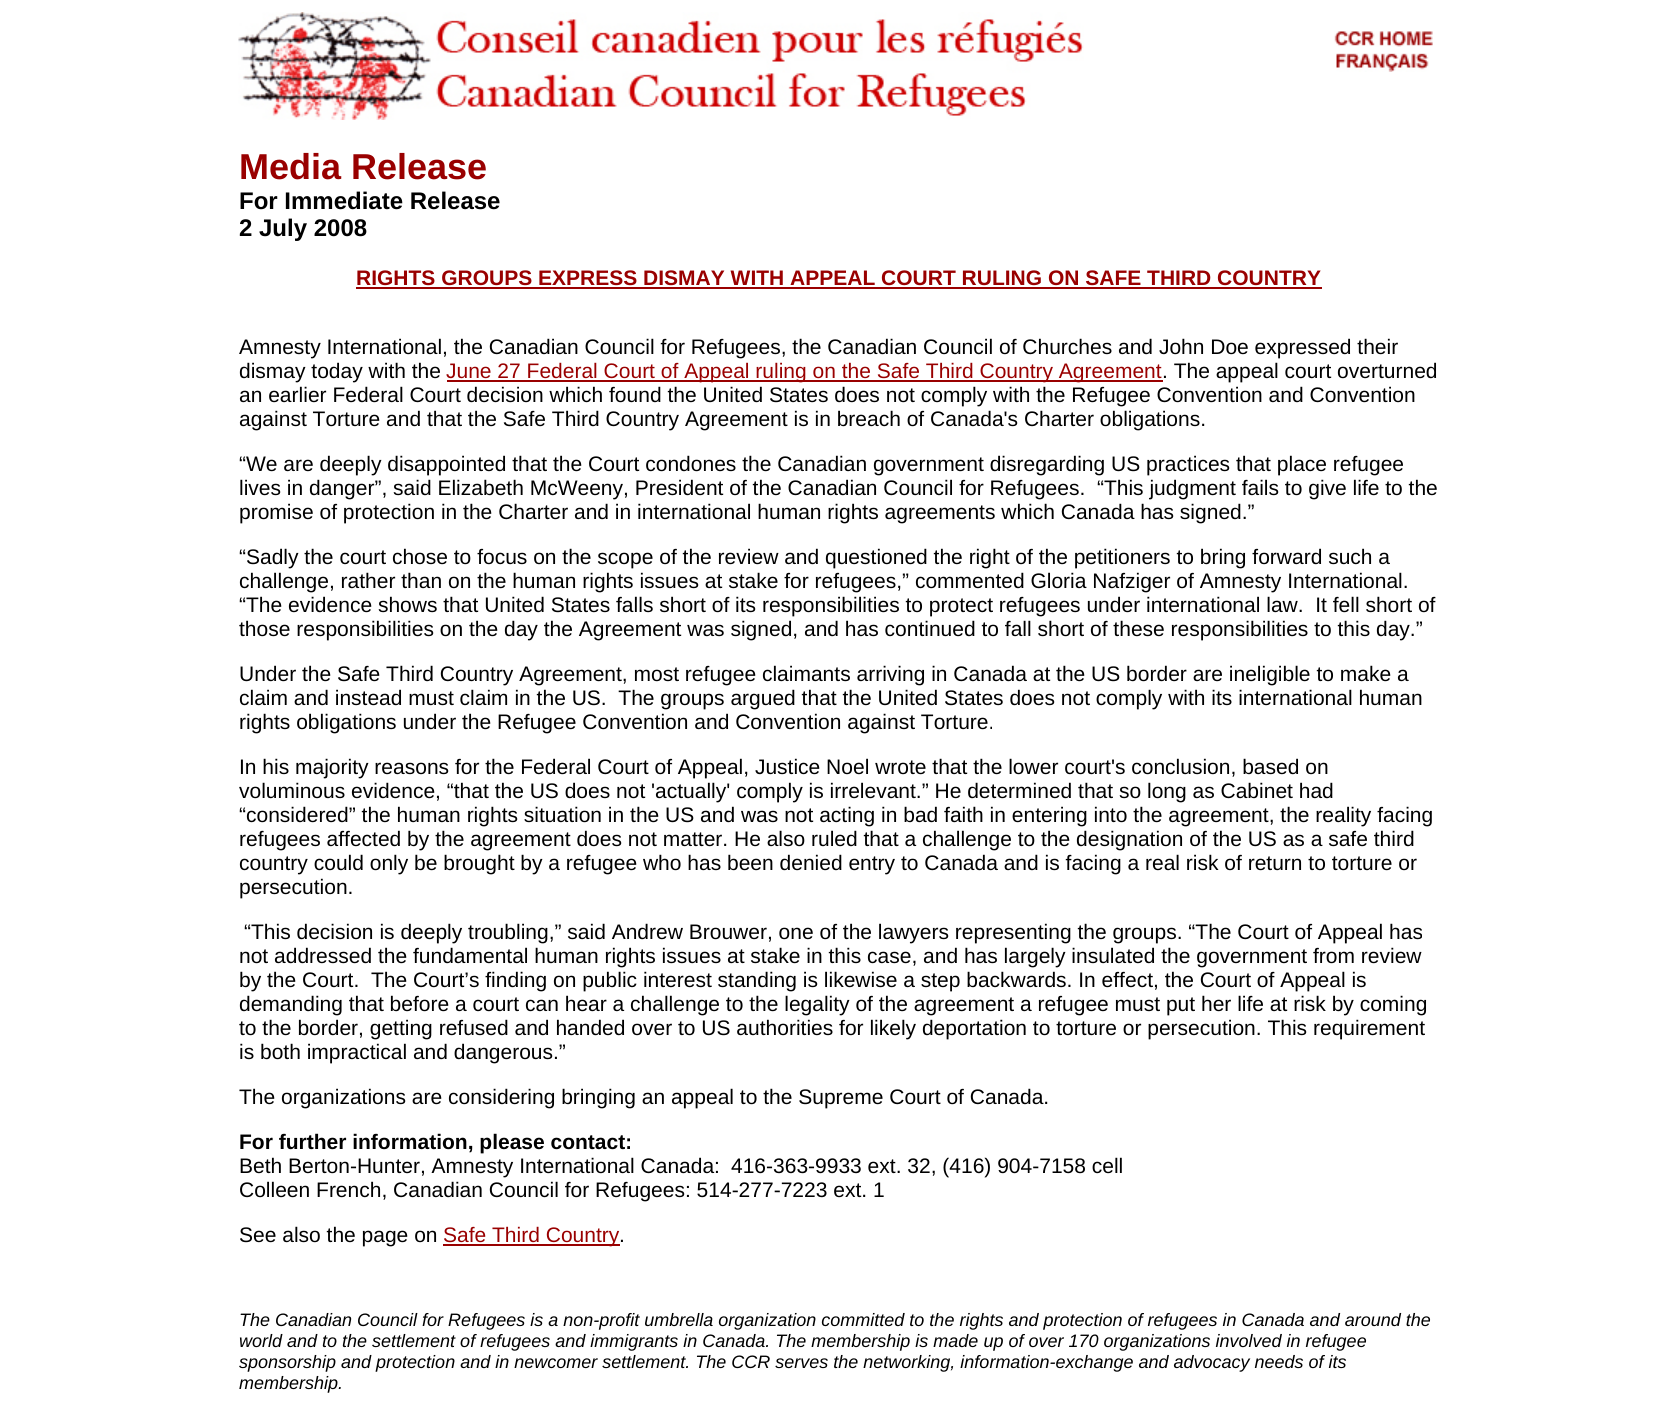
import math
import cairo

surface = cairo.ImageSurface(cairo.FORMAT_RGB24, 1676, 1411)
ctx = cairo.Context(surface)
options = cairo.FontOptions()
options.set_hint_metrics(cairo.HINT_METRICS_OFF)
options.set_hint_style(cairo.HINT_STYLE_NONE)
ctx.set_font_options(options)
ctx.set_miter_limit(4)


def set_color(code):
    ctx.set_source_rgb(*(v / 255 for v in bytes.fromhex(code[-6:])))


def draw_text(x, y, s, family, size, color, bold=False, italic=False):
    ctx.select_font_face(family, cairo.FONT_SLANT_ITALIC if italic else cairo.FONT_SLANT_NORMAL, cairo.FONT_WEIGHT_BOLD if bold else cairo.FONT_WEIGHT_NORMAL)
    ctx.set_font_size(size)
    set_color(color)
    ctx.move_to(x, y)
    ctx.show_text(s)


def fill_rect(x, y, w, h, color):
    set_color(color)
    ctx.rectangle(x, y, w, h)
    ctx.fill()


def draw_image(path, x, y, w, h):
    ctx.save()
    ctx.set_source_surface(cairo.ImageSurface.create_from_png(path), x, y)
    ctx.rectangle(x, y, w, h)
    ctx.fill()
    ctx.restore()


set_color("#ffffff")
ctx.paint()
draw_image("assets/img1.png", 238, 12, 846, 108)
draw_image("assets/img2.png", 1334, 31, 99, 16)
draw_image("assets/img3.png", 1336, 53, 93, 19)
draw_text(239, 179, "Media Release", "Liberation Sans", 36, "#990000", bold=True)
draw_text(239, 209, "For Immediate Release", "Liberation Sans", 24, "#000000", bold=True)
draw_text(239, 236, "2 July 2008", "Liberation Sans", 24, "#000000", bold=True)
draw_text(356, 285, "RIGHTS GROUPS EXPRESS DISMAY WITH APPEAL COURT RULING ON SAFE THIRD COUNTRY", "Liberation Sans", 21, "#990000", bold=True)
fill_rect(356, 287, 966, 2, "#990000")
draw_text(239, 354, "Amnesty International, the Canadian Council for Refugees, the Canadian Council of Churches and John Doe expressed their", "Liberation Sans", 21, "#000000")
draw_text(239, 378, "dismay today with the", "Liberation Sans", 21, "#000000")
fill_rect(447, 380, 716, 2, "#990000")
draw_text(446, 378, "June 27 Federal Court of Appeal ruling on the Safe Third Country Agreement", "Liberation Sans", 21, "#990000")
draw_text(1162, 378, ". The appeal court overturned", "Liberation Sans", 21, "#000000")
draw_text(239, 402, "an earlier Federal Court decision which found the United States does not comply with the Refugee Convention and Convention", "Liberation Sans", 21, "#000000")
draw_text(239, 426, "against Torture and that the Safe Third Country Agreement is in breach of Canada's Charter obligations.", "Liberation Sans", 21, "#000000")
draw_text(239, 471, "“We are deeply disappointed that the Court condones the Canadian government disregarding US practices that place refugee", "Liberation Sans", 21, "#000000")
draw_text(239, 495, "lives in danger”, said Elizabeth McWeeny, President of the Canadian Council for Refugees.  “This judgment fails to give life to the", "Liberation Sans", 21, "#000000")
draw_text(239, 519, "promise of protection in the Charter and in international human rights agreements which Canada has signed.”", "Liberation Sans", 21, "#000000")
draw_text(239, 564, "“Sadly the court chose to focus on the scope of the review and questioned the right of the petitioners to bring forward such a", "Liberation Sans", 21, "#000000")
draw_text(239, 588, "challenge, rather than on the human rights issues at stake for refugees,” commented Gloria Nafziger of Amnesty International.", "Liberation Sans", 21, "#000000")
draw_text(239, 612, "“The evidence shows that United States falls short of its responsibilities to protect refugees under international law.  It fell short of", "Liberation Sans", 21, "#000000")
draw_text(239, 636, "those responsibilities on the day the Agreement was signed, and has continued to fall short of these responsibilities to this day.”", "Liberation Sans", 21, "#000000")
draw_text(239, 681, "Under the Safe Third Country Agreement, most refugee claimants arriving in Canada at the US border are ineligible to make a", "Liberation Sans", 21, "#000000")
draw_text(239, 705, "claim and instead must claim in the US.  The groups argued that the United States does not comply with its international human", "Liberation Sans", 21, "#000000")
draw_text(239, 729, "rights obligations under the Refugee Convention and Convention against Torture.", "Liberation Sans", 21, "#000000")
draw_text(239, 774, "In his majority reasons for the Federal Court of Appeal, Justice Noel wrote that the lower court's conclusion, based on", "Liberation Sans", 21, "#000000")
draw_text(239, 798, "voluminous evidence, “that the US does not 'actually' comply is irrelevant.” He determined that so long as Cabinet had", "Liberation Sans", 21, "#000000")
draw_text(239, 822, "“considered” the human rights situation in the US and was not acting in bad faith in entering into the agreement, the reality facing", "Liberation Sans", 21, "#000000")
draw_text(239, 846, "refugees affected by the agreement does not matter. He also ruled that a challenge to the designation of the US as a safe third", "Liberation Sans", 21, "#000000")
draw_text(239, 870, "country could only be brought by a refugee who has been denied entry to Canada and is facing a real risk of return to torture or", "Liberation Sans", 21, "#000000")
draw_text(239, 894, "persecution.", "Liberation Sans", 21, "#000000")
draw_text(244, 939, "“This decision is deeply troubling,” said Andrew Brouwer, one of the lawyers representing the groups. “The Court of Appeal has", "Liberation Sans", 21, "#000000")
draw_text(239, 963, "not addressed the fundamental human rights issues at stake in this case, and has largely insulated the government from review", "Liberation Sans", 21, "#000000")
draw_text(239, 987, "by the Court.  The Court’s finding on public interest standing is likewise a step backwards. In effect, the Court of Appeal is", "Liberation Sans", 21, "#000000")
draw_text(239, 1011, "demanding that before a court can hear a challenge to the legality of the agreement a refugee must put her life at risk by coming", "Liberation Sans", 21, "#000000")
draw_text(239, 1035, "to the border, getting refused and handed over to US authorities for likely deportation to torture or persecution. This requirement", "Liberation Sans", 21, "#000000")
draw_text(239, 1059, "is both impractical and dangerous.”", "Liberation Sans", 21, "#000000")
draw_text(239, 1104, "The organizations are considering bringing an appeal to the Supreme Court of Canada.", "Liberation Sans", 21, "#000000")
draw_text(239, 1149, "For further information, please contact:", "Liberation Sans", 21, "#000000", bold=True)
draw_text(239, 1173, "Beth Berton-Hunter, Amnesty International Canada:", "Liberation Sans", 21, "#000000")
draw_text(731, 1173, "416-363-9933 ext. 32, (416) 904-7158 cell", "Liberation Sans", 21, "#000000")
draw_text(239, 1197, "Colleen French, Canadian Council for Refugees: 514-277-7223 ext. 1", "Liberation Sans", 21, "#000000")
draw_text(239, 1242, "See also the page on", "Liberation Sans", 21, "#000000")
fill_rect(443, 1244, 177, 2, "#990000")
draw_text(443, 1242, "Safe Third Country", "Liberation Sans", 21, "#990000")
draw_text(619, 1242, ".", "Liberation Sans", 21, "#000000")
draw_text(239, 1326, "The Canadian Council for Refugees is a non-profit umbrella organization committed to the rights and protection of refugees in Canada and around the", "Liberation Sans", 18, "#000000", italic=True)
draw_text(239, 1347, "world and to the settlement of refugees and immigrants in Canada. The membership is made up of over 170 organizations involved in refugee", "Liberation Sans", 18, "#000000", italic=True)
draw_text(239, 1368, "sponsorship and protection and in newcomer settlement. The CCR serves the networking, information-exchange and advocacy needs of its", "Liberation Sans", 18, "#000000", italic=True)
draw_text(239, 1389, "membership.", "Liberation Sans", 18, "#000000", italic=True)
surface.write_to_png("output.png")
